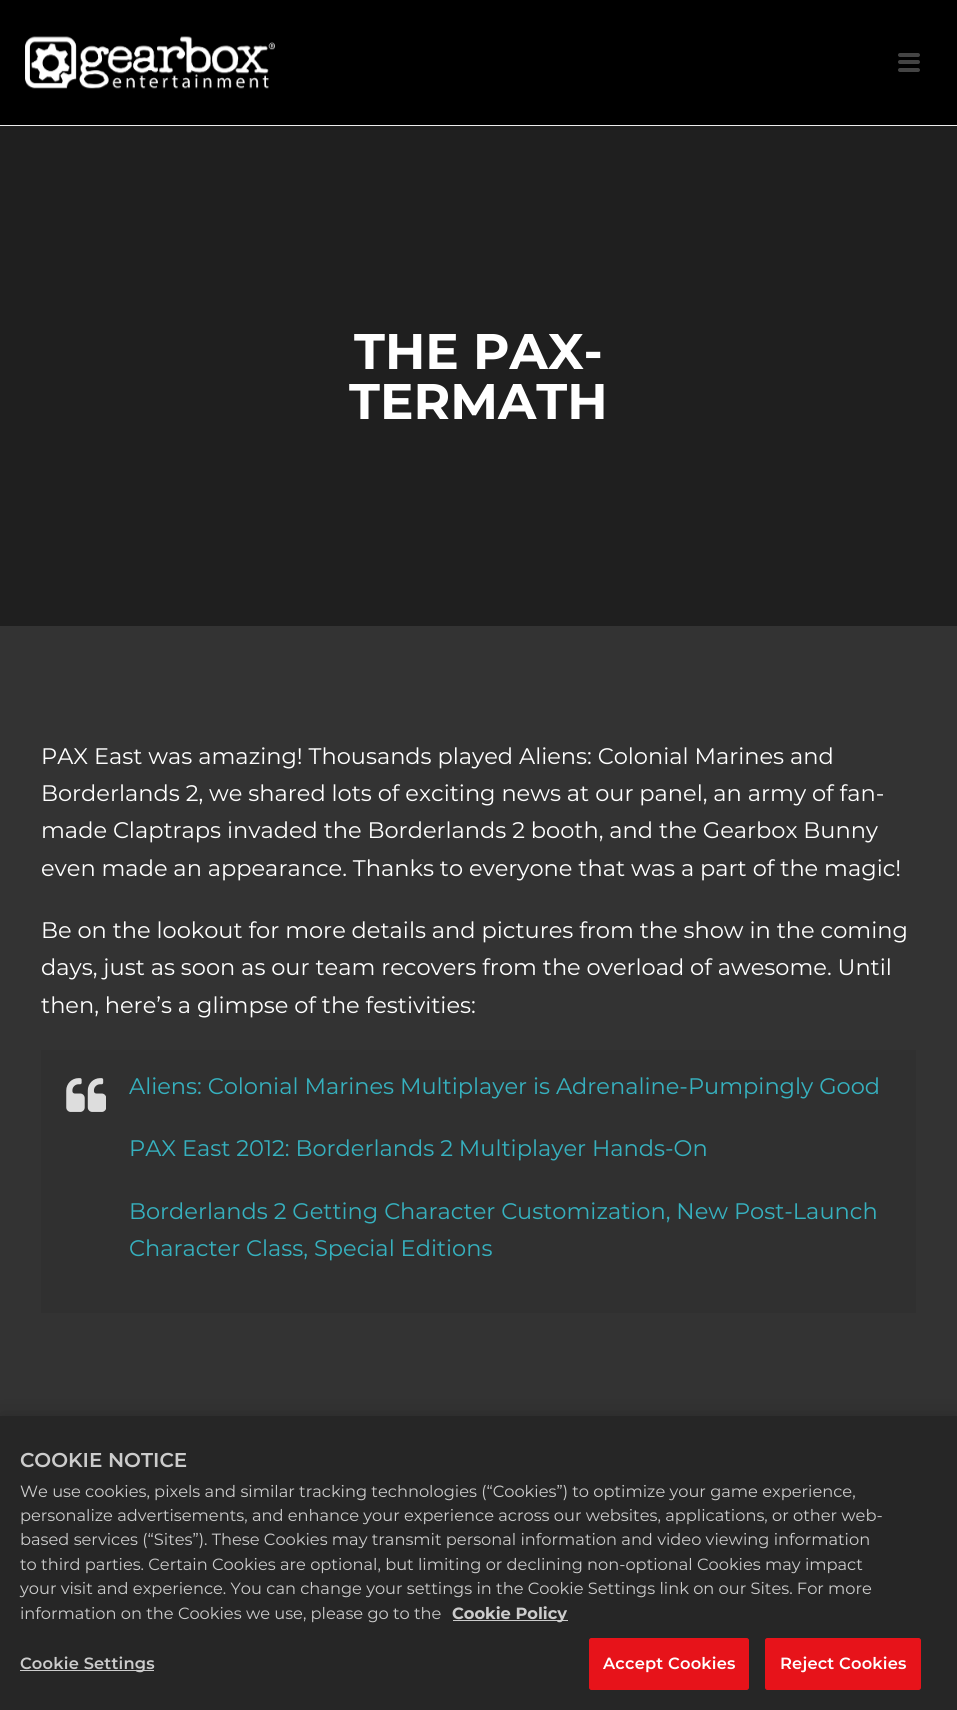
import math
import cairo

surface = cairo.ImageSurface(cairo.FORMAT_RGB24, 957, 1710)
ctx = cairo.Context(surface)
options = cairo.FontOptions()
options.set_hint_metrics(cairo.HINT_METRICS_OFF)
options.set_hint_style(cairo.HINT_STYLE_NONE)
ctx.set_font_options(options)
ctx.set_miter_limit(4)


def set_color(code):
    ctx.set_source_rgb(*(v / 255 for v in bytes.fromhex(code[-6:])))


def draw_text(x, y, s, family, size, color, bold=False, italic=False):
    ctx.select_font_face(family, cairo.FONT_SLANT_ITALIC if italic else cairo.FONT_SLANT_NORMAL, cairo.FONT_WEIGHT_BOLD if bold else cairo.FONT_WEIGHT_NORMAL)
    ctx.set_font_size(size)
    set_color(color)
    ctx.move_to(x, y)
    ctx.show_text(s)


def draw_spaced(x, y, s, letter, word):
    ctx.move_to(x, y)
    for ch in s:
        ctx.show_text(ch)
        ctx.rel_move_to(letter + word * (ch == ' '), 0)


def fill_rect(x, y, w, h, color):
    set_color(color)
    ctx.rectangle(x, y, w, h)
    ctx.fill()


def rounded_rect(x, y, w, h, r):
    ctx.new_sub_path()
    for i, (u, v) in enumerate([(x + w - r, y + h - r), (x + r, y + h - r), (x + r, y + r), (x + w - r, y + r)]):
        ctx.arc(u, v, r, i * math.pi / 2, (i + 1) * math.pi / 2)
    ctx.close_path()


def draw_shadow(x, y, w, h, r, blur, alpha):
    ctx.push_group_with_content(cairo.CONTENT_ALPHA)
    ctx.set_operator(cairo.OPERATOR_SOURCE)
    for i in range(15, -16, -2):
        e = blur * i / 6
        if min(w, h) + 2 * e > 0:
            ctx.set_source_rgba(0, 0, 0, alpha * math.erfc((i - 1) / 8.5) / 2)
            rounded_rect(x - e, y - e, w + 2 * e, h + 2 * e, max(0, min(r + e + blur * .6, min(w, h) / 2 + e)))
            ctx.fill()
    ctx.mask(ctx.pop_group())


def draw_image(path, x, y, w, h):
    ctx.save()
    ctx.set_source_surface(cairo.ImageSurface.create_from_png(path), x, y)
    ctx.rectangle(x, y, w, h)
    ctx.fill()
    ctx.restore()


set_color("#333333")
ctx.paint()
fill_rect(0, 125, 957, 1, "#ededed")
fill_rect(0, 0, 957, 125, "#000000")
draw_image("assets/img1.png", 25, 36, 250, 53)
set_color("#444444")
rounded_rect(898, 53, 22, 4, 2)
ctx.fill()
rounded_rect(898, 60, 22, 4, 2)
ctx.fill()
rounded_rect(898, 68, 22, 4, 2)
ctx.fill()
fill_rect(0, 126, 957, 500, "#1f1f1f")
draw_text(354, 369, "THE PAX-", "Montserrat", 50, "#ffffff", bold=True)
draw_text(349, 419, "TERMATH", "Montserrat", 50, "#ffffff", bold=True)
draw_text(41, 764, "PAX East was amazing! Thousands played Aliens: Colonial Marines and", "Montserrat", 22.5, "#ffffff")
draw_text(41, 801, "Borderlands 2, we shared lots of exciting news at our panel, an army of fan-", "Montserrat", 22.5, "#ffffff")
draw_text(41, 838, "made Claptraps invaded the Borderlands 2 booth, and the Gearbox Bunny", "Montserrat", 22.5, "#ffffff")
draw_text(41, 876, "even made an appearance. Thanks to everyone that was a part of the magic!", "Montserrat", 22.5, "#ffffff")
draw_text(41, 938, "Be on the lookout for more details and pictures from the show in the coming", "Montserrat", 22.5, "#ffffff")
draw_text(41, 975, "days, just as soon as our team recovers from the overload of awesome. Until", "Montserrat", 22.5, "#ffffff")
draw_text(41, 1013, "then, here’s a glimpse of the festivities:", "Montserrat", 22.5, "#ffffff")
fill_rect(41, 1050, 875, 263, "#303030")
draw_image("assets/img2.png", 66, 1078, 40, 34)
draw_text(129, 1094, "Aliens: Colonial Marines Multiplayer is Adrenaline-Pumpingly Good", "Montserrat", 22.5, "#36b1bf")
draw_text(129, 1156, "PAX East 2012: Borderlands 2 Multiplayer Hands-On", "Montserrat", 22.5, "#36b1bf")
draw_text(129, 1219, "Borderlands 2 Getting Character Customization, New Post-Launch", "Montserrat", 22.5, "#36b1bf")
draw_text(129, 1256, "Character Class, Special Editions", "Montserrat", 22.5, "#36b1bf")
set_color("#000000")
draw_shadow(0, 1416, 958, 294, 0, 11, 0.2)
fill_rect(0, 1416, 957, 294, "#262626")
draw_text(20, 1467, "COOKIE NOTICE", "Montserrat SemiBold", 20, "#cccccc")
draw_text(20, 1497, "We use cookies, pixels and similar tracking technologies (“Cookies”) to optimize your game experience,", "Montserrat", 16.25, "#cccccc")
draw_text(20, 1521, "personalize advertisements, and enhance your experience across our websites, applications, or other web-", "Montserrat", 16.25, "#cccccc")
draw_text(20, 1545, "based services (“Sites”). These Cookies may transmit personal information and video viewing information", "Montserrat", 16.25, "#cccccc")
draw_text(20, 1570, "to third parties. Certain Cookies are optional, but limiting or declining non-optional Cookies may impact", "Montserrat", 16.25, "#cccccc")
draw_text(20, 1594, "your visit and experience. You can change your settings in the Cookie Settings link on our Sites. For more", "Montserrat", 16.25, "#cccccc")
draw_text(20, 1619, "information on the Cookies we use, please go to the", "Montserrat", 16.25, "#cccccc")
fill_rect(453, 1620, 115, 1, "#cccccc")
draw_text(452, 1619, "Cookie Policy", "Montserrat", 16.25, "#cccccc", bold=True)
fill_rect(20, 1670, 134, 1, "#cccccc")
ctx.select_font_face("Montserrat SemiBold")
draw_spaced(20, 1669, "Cookie Settings", 0.2, 0)
set_color("#e7131a")
rounded_rect(589.5, 1638.5, 159, 51, 2)
ctx.fill_preserve()
ctx.set_line_width(1)
ctx.stroke()
set_color("#ffffff")
draw_spaced(603, 1669, "Accept Cookies", 0.2, 0)
set_color("#e7131a")
rounded_rect(765.5, 1638.5, 155, 51, 2)
ctx.fill_preserve()
ctx.stroke()
set_color("#ffffff")
draw_spaced(780, 1669, "Reject Cookies", 0.2, 0)
surface.write_to_png("output.png")
